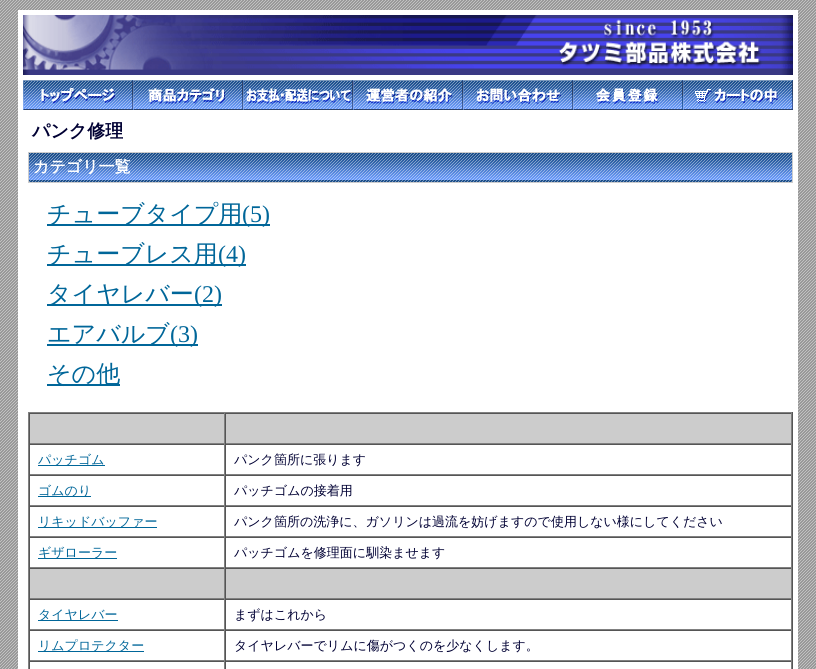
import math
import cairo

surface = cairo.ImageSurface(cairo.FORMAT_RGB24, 816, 669)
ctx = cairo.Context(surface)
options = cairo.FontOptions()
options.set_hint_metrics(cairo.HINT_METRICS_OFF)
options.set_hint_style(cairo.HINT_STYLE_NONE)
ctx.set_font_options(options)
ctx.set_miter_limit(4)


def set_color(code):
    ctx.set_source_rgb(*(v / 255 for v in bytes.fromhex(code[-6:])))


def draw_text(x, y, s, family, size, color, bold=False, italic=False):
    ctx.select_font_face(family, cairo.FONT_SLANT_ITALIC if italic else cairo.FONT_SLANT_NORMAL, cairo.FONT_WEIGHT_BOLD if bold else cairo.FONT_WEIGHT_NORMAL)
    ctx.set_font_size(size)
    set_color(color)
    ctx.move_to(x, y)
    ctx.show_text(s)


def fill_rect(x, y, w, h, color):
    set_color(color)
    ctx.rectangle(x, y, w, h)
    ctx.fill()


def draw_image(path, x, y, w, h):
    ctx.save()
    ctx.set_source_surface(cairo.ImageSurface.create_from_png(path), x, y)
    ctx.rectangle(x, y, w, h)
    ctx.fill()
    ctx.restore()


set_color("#ffffff")
ctx.paint()
draw_image("assets/img1.png", 0, 0, 816, 669)
fill_rect(18, 10, 780, 659, "#ffffff")
draw_image("assets/img2.png", 23, 15, 770, 60)
draw_image("assets/img3.png", 23, 80, 110, 30)
draw_image("assets/img4.png", 133, 80, 110, 30)
draw_image("assets/img5.png", 243, 80, 110, 30)
draw_image("assets/img6.png", 353, 80, 110, 30)
draw_image("assets/img7.png", 463, 80, 110, 30)
draw_image("assets/img8.png", 573, 80, 110, 30)
draw_image("assets/img9.png", 683, 80, 110, 30)
draw_text(32, 137, "パンク修理", "WenQuanYi Zen Hei", 18, "#000033", bold=True)
draw_image("assets/img10.png", 29, 153, 763, 29)
ctx.rectangle(28.5, 152.5, 764, 30)
set_color("#cccccc")
ctx.set_line_width(1)
ctx.stroke()
draw_text(33, 172, "カテゴリ一覧", "WenQuanYi Zen Hei", 16, "#ffffff", bold=True)
fill_rect(47, 224, 223, 2, "#006699")
draw_text(47, 222, "チューブタイプ用", "WenQuanYi Zen Hei Medium", 24, "#006699")
draw_text(242, 222, "(5)", "Liberation Serif", 24, "#006699")
fill_rect(47, 264, 199, 2, "#006699")
draw_text(47, 262, "チューブレス用", "WenQuanYi Zen Hei Medium", 24, "#006699")
draw_text(218, 262, "(4)", "Liberation Serif", 24, "#006699")
fill_rect(47, 304, 175, 2, "#006699")
draw_text(47, 302, "タイヤレバー", "WenQuanYi Zen Hei Medium", 24, "#006699")
draw_text(194, 302, "(2)", "Liberation Serif", 24, "#006699")
fill_rect(47, 344, 151, 2, "#006699")
draw_text(47, 342, "エアバルブ", "WenQuanYi Zen Hei Medium", 24, "#006699")
draw_text(170, 342, "(3)", "Liberation Serif", 24, "#006699")
fill_rect(47, 384, 73, 2, "#006699")
draw_text(47, 382, "その他", "WenQuanYi Zen Hei Medium", 24, "#006699")
fill_rect(28, 412, 765, 1, "#808080")
fill_rect(792, 412, 1, 257, "#555555")
fill_rect(28, 412, 1, 257, "#808080")
fill_rect(30, 414, 194, 29, "#cccccc")
fill_rect(29, 413, 763, 1, "#555555")
fill_rect(224, 413, 1, 31, "#808080")
fill_rect(29, 443, 196, 1, "#808080")
fill_rect(29, 413, 1, 31, "#555555")
fill_rect(226, 414, 565, 29, "#cccccc")
fill_rect(791, 413, 1, 31, "#808080")
fill_rect(225, 443, 567, 1, "#808080")
fill_rect(225, 413, 1, 31, "#555555")
fill_rect(29, 444, 763, 1, "#555555")
fill_rect(224, 444, 1, 31, "#808080")
fill_rect(29, 474, 196, 1, "#808080")
fill_rect(29, 444, 1, 31, "#555555")
fill_rect(38, 465, 67, 1, "#006699")
draw_text(38, 464, "パッチゴム", "WenQuanYi Zen Hei Medium", 13, "#006699")
fill_rect(791, 444, 1, 31, "#808080")
fill_rect(225, 474, 567, 1, "#808080")
fill_rect(225, 444, 1, 31, "#555555")
draw_text(234, 464, "パンク箇所に張ります", "WenQuanYi Zen Hei Medium", 13, "#000033")
fill_rect(29, 475, 763, 1, "#555555")
fill_rect(224, 475, 1, 31, "#808080")
fill_rect(29, 505, 196, 1, "#808080")
fill_rect(29, 475, 1, 31, "#555555")
fill_rect(38, 496, 53, 1, "#006699")
draw_text(38, 495, "ゴムのり", "WenQuanYi Zen Hei Medium", 13, "#006699")
fill_rect(791, 475, 1, 31, "#808080")
fill_rect(225, 505, 567, 1, "#808080")
fill_rect(225, 475, 1, 31, "#555555")
draw_text(234, 495, "パッチゴムの接着用", "WenQuanYi Zen Hei Medium", 13, "#000033")
fill_rect(29, 506, 763, 1, "#555555")
fill_rect(224, 506, 1, 31, "#808080")
fill_rect(29, 536, 196, 1, "#808080")
fill_rect(29, 506, 1, 31, "#555555")
fill_rect(38, 527, 119, 1, "#006699")
draw_text(38, 526, "リキッドバッファー", "WenQuanYi Zen Hei Medium", 13, "#006699")
fill_rect(791, 506, 1, 31, "#808080")
fill_rect(225, 536, 567, 1, "#808080")
fill_rect(225, 506, 1, 31, "#555555")
draw_text(234, 526, "パンク箇所の洗浄に、ガソリンは過流を妨げますので使用しない様にしてください", "WenQuanYi Zen Hei Medium", 13, "#000033")
fill_rect(29, 537, 763, 1, "#555555")
fill_rect(224, 537, 1, 31, "#808080")
fill_rect(29, 567, 196, 1, "#808080")
fill_rect(29, 537, 1, 31, "#555555")
fill_rect(38, 558, 79, 1, "#006699")
draw_text(38, 557, "ギザローラー", "WenQuanYi Zen Hei Medium", 13, "#006699")
fill_rect(791, 537, 1, 31, "#808080")
fill_rect(225, 567, 567, 1, "#808080")
fill_rect(225, 537, 1, 31, "#555555")
draw_text(234, 557, "パッチゴムを修理面に馴染ませます", "WenQuanYi Zen Hei Medium", 13, "#000033")
fill_rect(30, 569, 194, 29, "#cccccc")
fill_rect(29, 568, 763, 1, "#555555")
fill_rect(224, 568, 1, 31, "#808080")
fill_rect(29, 598, 196, 1, "#808080")
fill_rect(29, 568, 1, 31, "#555555")
fill_rect(226, 569, 565, 29, "#cccccc")
fill_rect(791, 568, 1, 31, "#808080")
fill_rect(225, 598, 567, 1, "#808080")
fill_rect(225, 568, 1, 31, "#555555")
fill_rect(29, 599, 763, 1, "#555555")
fill_rect(224, 599, 1, 31, "#808080")
fill_rect(29, 629, 196, 1, "#808080")
fill_rect(29, 599, 1, 31, "#555555")
fill_rect(38, 620, 80, 1, "#006699")
draw_text(38, 619, "タイヤレバー", "WenQuanYi Zen Hei Medium", 13, "#006699")
fill_rect(791, 599, 1, 31, "#808080")
fill_rect(225, 629, 567, 1, "#808080")
fill_rect(225, 599, 1, 31, "#555555")
draw_text(234, 619, "まずはこれから", "WenQuanYi Zen Hei Medium", 13, "#000033")
fill_rect(29, 630, 763, 1, "#555555")
fill_rect(224, 630, 1, 31, "#808080")
fill_rect(29, 660, 196, 1, "#808080")
fill_rect(29, 630, 1, 31, "#555555")
fill_rect(38, 651, 106, 1, "#006699")
draw_text(38, 650, "リムプロテクター", "WenQuanYi Zen Hei Medium", 13, "#006699")
fill_rect(791, 630, 1, 31, "#808080")
fill_rect(225, 660, 567, 1, "#808080")
fill_rect(225, 630, 1, 31, "#555555")
draw_text(234, 650, "タイヤレバーでリムに傷がつくのを少なくします。", "WenQuanYi Zen Hei Medium", 13, "#000033")
fill_rect(29, 661, 763, 1, "#555555")
fill_rect(224, 661, 1, 8, "#808080")
fill_rect(29, 661, 1, 8, "#555555")
fill_rect(791, 661, 1, 8, "#808080")
fill_rect(225, 661, 1, 8, "#555555")
surface.write_to_png("output.png")
